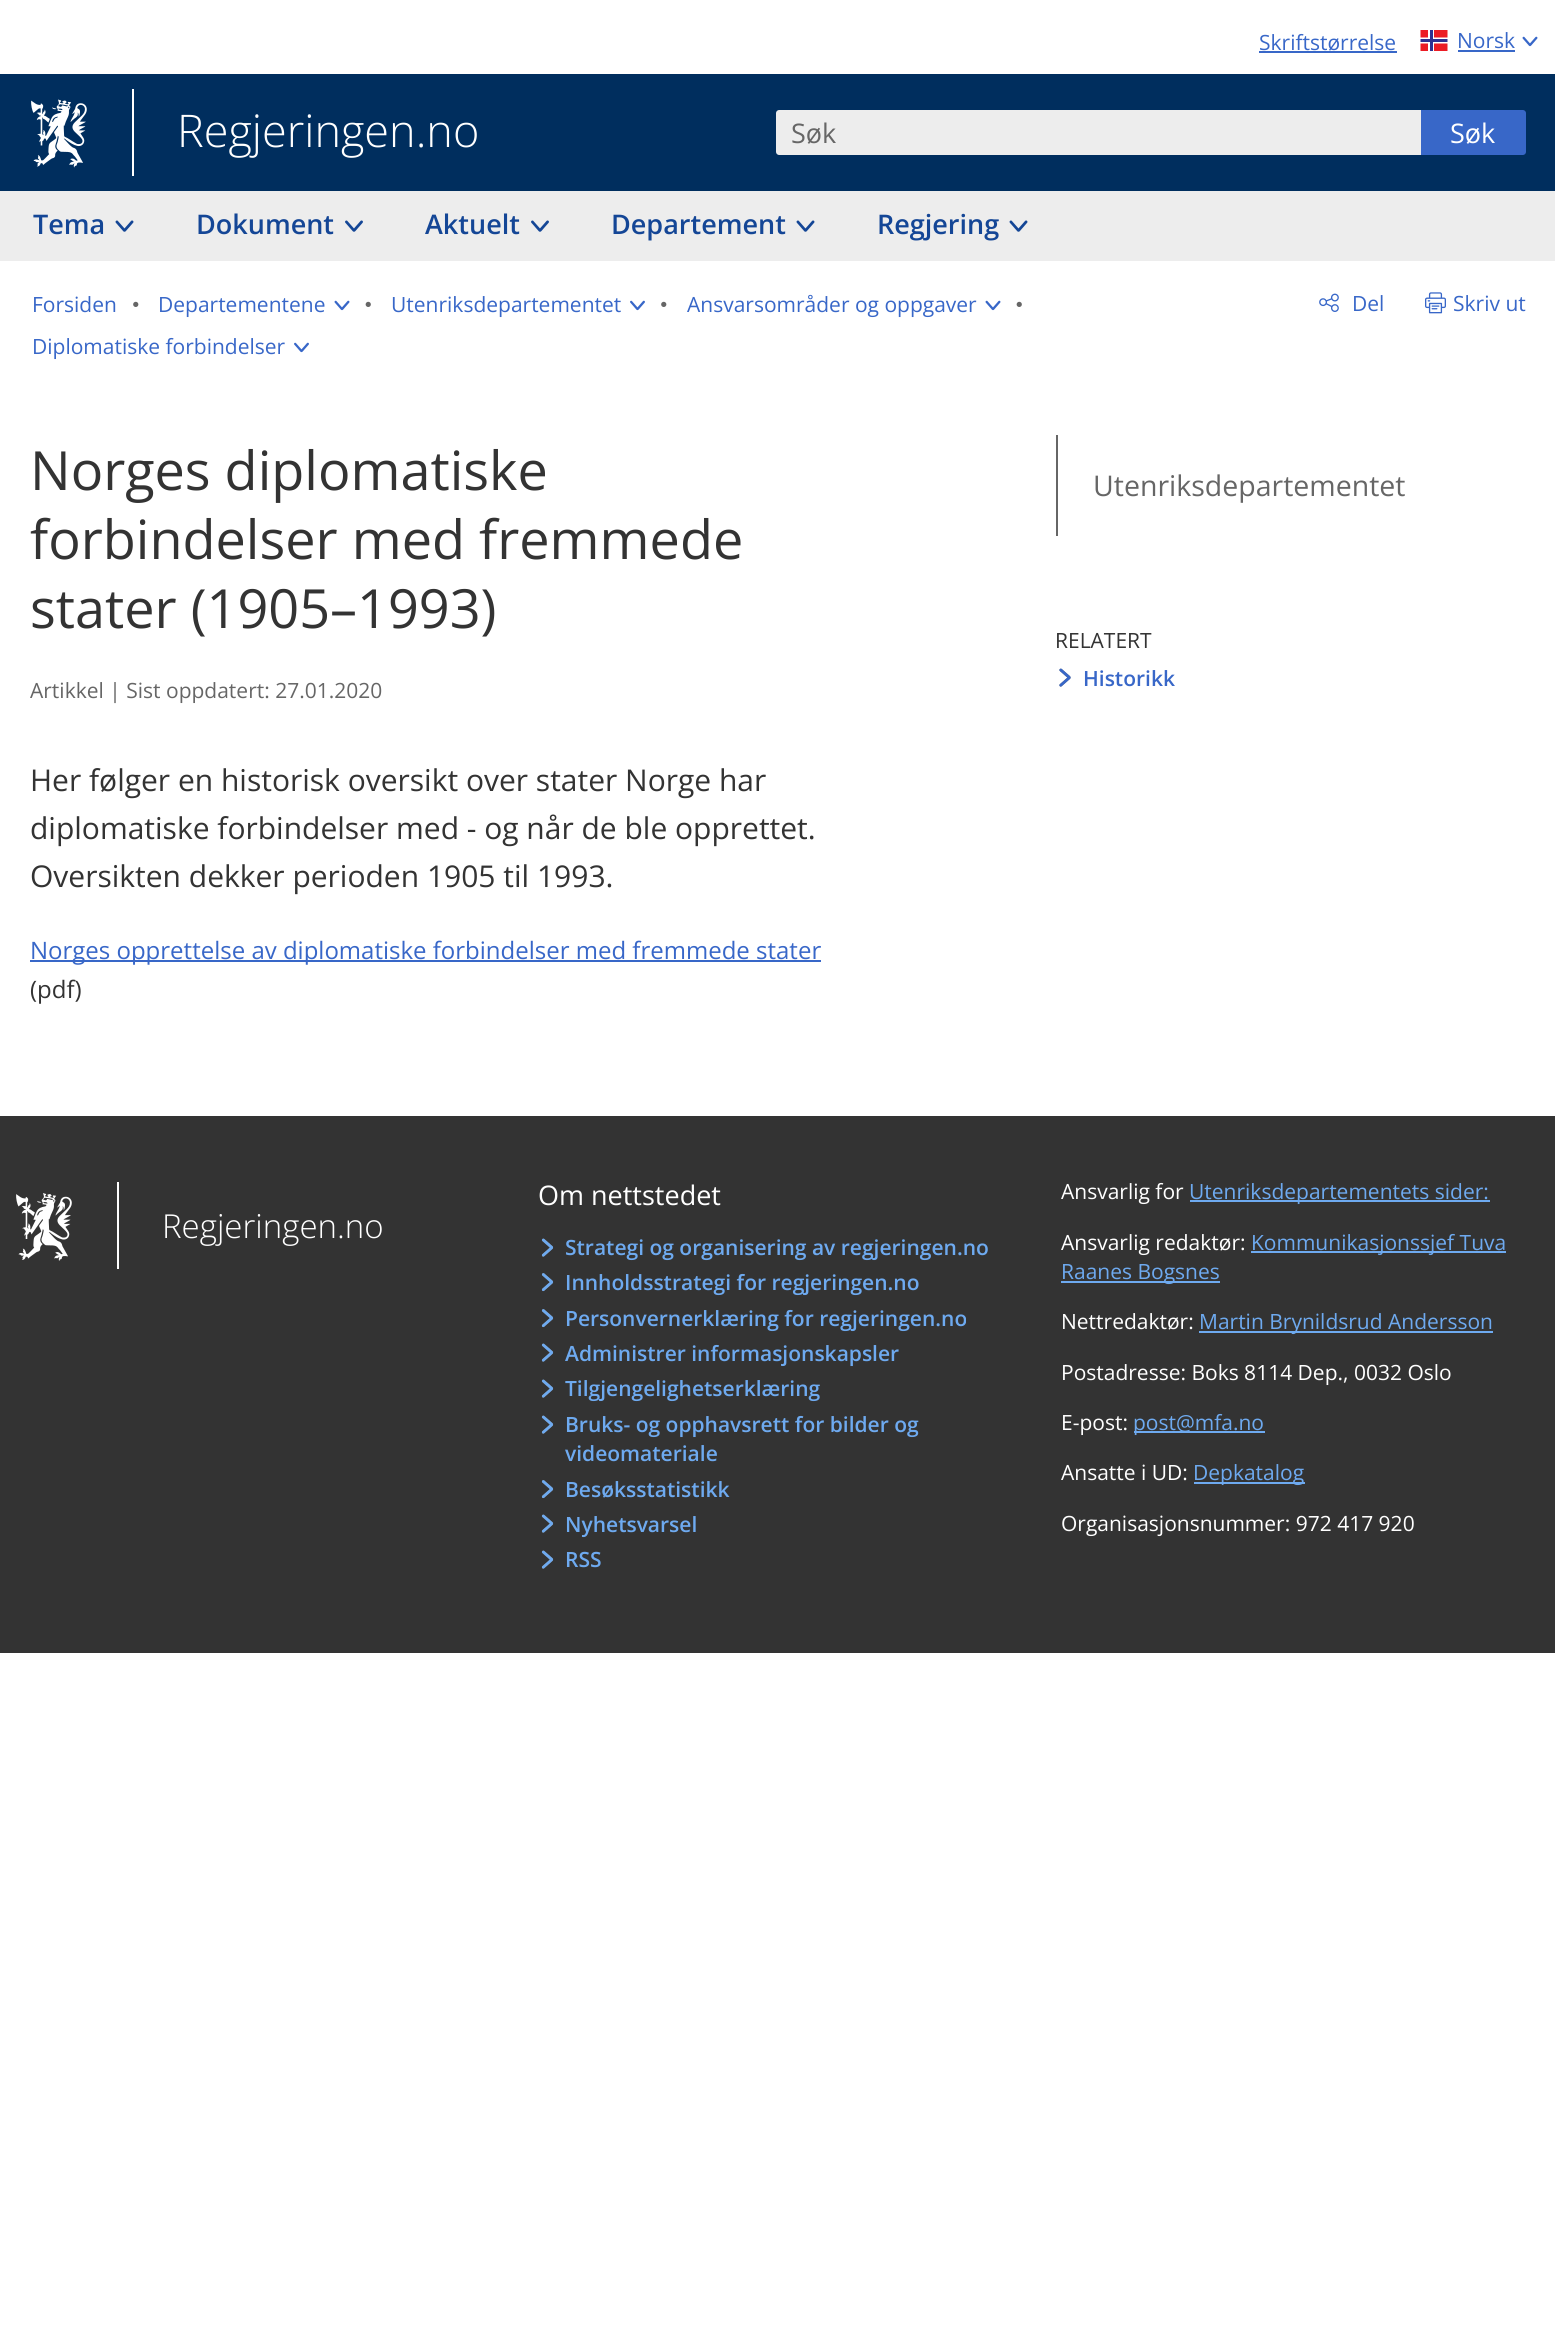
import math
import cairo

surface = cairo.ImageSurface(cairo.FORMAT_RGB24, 1555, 2335)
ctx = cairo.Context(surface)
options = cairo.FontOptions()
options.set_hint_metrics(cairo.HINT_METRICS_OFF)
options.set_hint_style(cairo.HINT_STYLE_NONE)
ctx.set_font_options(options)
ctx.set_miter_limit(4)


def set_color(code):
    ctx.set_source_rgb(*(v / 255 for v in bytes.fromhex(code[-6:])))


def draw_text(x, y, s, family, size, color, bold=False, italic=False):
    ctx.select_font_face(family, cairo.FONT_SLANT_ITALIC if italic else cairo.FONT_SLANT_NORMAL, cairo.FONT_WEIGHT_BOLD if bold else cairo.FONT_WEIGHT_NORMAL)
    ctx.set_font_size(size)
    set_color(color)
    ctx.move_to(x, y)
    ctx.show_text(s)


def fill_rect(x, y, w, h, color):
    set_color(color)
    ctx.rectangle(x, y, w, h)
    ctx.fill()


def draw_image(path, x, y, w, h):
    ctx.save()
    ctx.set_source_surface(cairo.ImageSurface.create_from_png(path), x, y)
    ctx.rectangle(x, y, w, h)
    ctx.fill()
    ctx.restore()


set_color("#ffffff")
ctx.paint()
draw_text(1259, 50, "Skriftstørrelse", "Open Sans", 21, "#3867c8")
fill_rect(1259, 51, 138, 2, "#3867c8")
draw_image("assets/img1.png", 1420, 30, 28, 21)
draw_text(1457, 48, "Norsk", "Open Sans", 21, "#3867c8")
fill_rect(1458, 50, 57, 2, "#3867c8")
draw_image("assets/img2.png", 1522, 36, 16, 11)
fill_rect(0, 74, 1555, 117, "#002e5e")
draw_image("assets/img3.png", 31, 99, 56, 69)
fill_rect(132, 89, 2, 87, "#ffffff")
draw_text(177, 147, "Regjeringen.no", "Open Sans Light", 45, "#ffffff")
fill_rect(0, 191, 1555, 70, "#ededed")
ctx.new_path()
ctx.move_to(779, 110)
ctx.line_to(1421, 110)
ctx.line_to(1421, 155)
ctx.line_to(779, 155)
ctx.curve_to(777.5, 155, 776, 153.5, 776, 152)
ctx.line_to(776, 113)
ctx.curve_to(776, 111.5, 777.5, 110, 779, 110)
ctx.close_path()
ctx.fill()
draw_text(791, 143, "Søk", "Open Sans", 27, "#666666")
set_color("#3867c8")
ctx.new_path()
ctx.move_to(1421, 110)
ctx.line_to(1523, 110)
ctx.curve_to(1524.5, 110, 1526, 111.5, 1526, 113)
ctx.line_to(1526, 152)
ctx.curve_to(1526, 153.5, 1524.5, 155, 1523, 155)
ctx.line_to(1421, 155)
ctx.close_path()
ctx.fill()
draw_text(1450, 143, "Søk", "Open Sans", 27, "#ffffff")
draw_text(33, 234, "Tema", "Open Sans SemiBold", 27, "#144696")
draw_image("assets/img4.png", 115, 220, 19, 12)
draw_text(196, 234, "Dokument", "Open Sans SemiBold", 27, "#144696")
draw_image("assets/img5.png", 345, 220, 18, 12)
draw_text(425, 234, "Aktuelt", "Open Sans SemiBold", 27, "#144696")
draw_image("assets/img5.png", 531, 220, 18, 12)
draw_text(611, 234, "Departement", "Open Sans SemiBold", 27, "#144696")
draw_image("assets/img4.png", 796, 220, 19, 12)
draw_text(877, 234, "Regjering", "Open Sans SemiBold", 27, "#144696")
draw_image("assets/img4.png", 1009, 220, 19, 12)
draw_text(32, 312, "Forsiden", "Open Sans", 21, "#3867c8")
draw_image("assets/img6.png", 133, 301, 6, 6)
draw_text(158, 312, "Departementene", "Open Sans", 21, "#3867c8")
draw_image("assets/img2.png", 334, 300, 16, 11)
draw_image("assets/img7.png", 365, 301, 6, 6)
draw_text(391, 312, "Utenriksdepartementet", "Open Sans", 21, "#3867c8")
draw_image("assets/img8.png", 630, 300, 15, 11)
draw_image("assets/img6.png", 661, 301, 6, 6)
draw_text(687, 312, "Ansvarsområder og oppgaver", "Open Sans", 21, "#3867c8")
draw_image("assets/img2.png", 985, 300, 16, 11)
draw_image("assets/img7.png", 1016, 301, 6, 6)
draw_text(32, 354, "Diplomatiske forbindelser", "Open Sans", 21, "#3867c8")
draw_image("assets/img8.png", 294, 342, 15, 11)
draw_image("assets/img9.png", 1319, 293, 20, 19)
draw_text(1352, 311, "Del", "Open Sans", 21, "#3867c8")
draw_image("assets/img10.png", 1425, 292, 21, 22)
draw_text(1453, 311, "Skriv ut", "Open Sans", 21, "#3867c8")
draw_text(30, 490, "Norges diplomatiske", "Open Sans", 54, "#333333")
draw_text(30, 559, "forbindelser med fremmede", "Open Sans", 54, "#333333")
draw_text(30, 628, "stater (1905–1993)", "Open Sans", 54, "#333333")
draw_text(30, 698, "Artikkel | Sist oppdatert: 27.01.2020", "Open Sans", 21, "#666666")
draw_text(30, 791, "Her følger en historisk oversikt over stater Norge har", "Open Sans", 30, "#333333")
draw_text(30, 839, "diplomatiske forbindelser med - og når de ble opprettet.", "Open Sans", 30, "#333333")
draw_text(30, 887, "Oversikten dekker perioden 1905 til 1993.", "Open Sans", 30, "#333333")
fill_rect(30, 960, 791, 2, "#3867c8")
draw_text(30, 959, "Norges opprettelse av diplomatiske forbindelser med fremmede stater", "Open Sans", 24, "#3867c8")
draw_text(30, 998, "(pdf)", "Open Sans", 24, "#333333")
fill_rect(1056, 435, 2, 101, "#666666")
draw_text(1093, 496, "Utenriksdepartementet", "Open Sans", 28.5, "#666666")
draw_text(1055, 648, "RELATERT", "Open Sans", 21, "#333333")
draw_image("assets/img11.png", 1059, 668, 12, 19)
draw_image("assets/img12.png", 1059, 668, 12, 19)
draw_text(1083, 686, "Historikk", "Open Sans SemiBold", 21, "#3867c8")
fill_rect(0, 1116, 1555, 537, "#333333")
draw_image("assets/img13.png", 16, 1193, 56, 68)
fill_rect(117, 1182, 2, 87, "#ffffff")
draw_text(162, 1238, "Regjeringen.no", "Open Sans Light", 33, "#ffffff")
draw_text(538, 1205, "Om nettstedet", "Open Sans", 27, "#ffffff")
draw_image("assets/img14.png", 542, 1238, 11, 19)
draw_image("assets/img15.png", 541, 1238, 13, 19)
draw_text(565, 1255, "Strategi og organisering av regjeringen.no", "Open Sans SemiBold", 21, "#6eaaf0")
draw_image("assets/img16.png", 542, 1273, 11, 18)
draw_image("assets/img17.png", 541, 1273, 13, 19)
draw_text(565, 1290, "Innholdsstrategi for regjeringen.no", "Open Sans SemiBold", 21, "#6eaaf0")
draw_image("assets/img16.png", 542, 1309, 11, 18)
draw_image("assets/img17.png", 541, 1309, 13, 19)
draw_text(565, 1326, "Personvernerklæring for regjeringen.no", "Open Sans SemiBold", 21, "#6eaaf0")
draw_image("assets/img14.png", 542, 1343, 11, 19)
draw_image("assets/img15.png", 541, 1343, 13, 19)
draw_text(565, 1361, "Administrer informasjonskapsler", "Open Sans SemiBold", 21, "#6eaaf0")
draw_image("assets/img14.png", 542, 1379, 11, 19)
draw_image("assets/img15.png", 541, 1379, 13, 19)
draw_text(565, 1396, "Tilgjengelighetserklæring", "Open Sans SemiBold", 21, "#6eaaf0")
draw_image("assets/img14.png", 542, 1415, 11, 19)
draw_image("assets/img15.png", 541, 1415, 13, 19)
draw_text(565, 1432, "Bruks- og opphavsrett for bilder og", "Open Sans SemiBold", 21, "#6eaaf0")
draw_text(565, 1461, "videomateriale", "Open Sans SemiBold", 21, "#6eaaf0")
draw_image("assets/img16.png", 542, 1480, 11, 18)
draw_image("assets/img17.png", 541, 1480, 13, 19)
draw_text(565, 1497, "Besøksstatistikk", "Open Sans SemiBold", 21, "#6eaaf0")
draw_image("assets/img14.png", 542, 1514, 11, 19)
draw_image("assets/img15.png", 541, 1514, 13, 19)
draw_text(565, 1532, "Nyhetsvarsel", "Open Sans SemiBold", 21, "#6eaaf0")
draw_image("assets/img14.png", 542, 1550, 11, 19)
draw_image("assets/img15.png", 541, 1550, 13, 19)
draw_text(565, 1567, "RSS", "Open Sans SemiBold", 21, "#6eaaf0")
draw_text(1061, 1199, "Ansvarlig for", "Open Sans", 21, "#ffffff")
fill_rect(1190, 1200, 300, 2, "#6eaaf0")
draw_text(1189, 1199, "Utenriksdepartementets sider:", "Open Sans", 21, "#6eaaf0")
draw_text(1061, 1250, "Ansvarlig redaktør:", "Open Sans", 21, "#ffffff")
fill_rect(1251, 1251, 255, 2, "#6eaaf0")
draw_text(1251, 1250, "Kommunikasjonssjef Tuva", "Open Sans", 21, "#6eaaf0")
fill_rect(1061, 1281, 159, 2, "#6eaaf0")
draw_text(1061, 1279, "Raanes Bogsnes", "Open Sans", 21, "#6eaaf0")
draw_text(1061, 1329, "Nettredaktør:", "Open Sans", 21, "#ffffff")
fill_rect(1199, 1331, 294, 2, "#6eaaf0")
draw_text(1199, 1329, "Martin Brynildsrud Andersson", "Open Sans", 21, "#6eaaf0")
draw_text(1061, 1380, "Postadresse: Boks 8114 Dep., 0032 Oslo", "Open Sans", 21, "#ffffff")
draw_text(1061, 1430, "E-post:", "Open Sans", 21, "#ffffff")
fill_rect(1134, 1431, 131, 2, "#6eaaf0")
draw_text(1133, 1430, "post@mfa.no", "Open Sans", 21, "#6eaaf0")
draw_text(1061, 1480, "Ansatte i UD:", "Open Sans", 21, "#ffffff")
fill_rect(1194, 1482, 111, 2, "#6eaaf0")
draw_text(1193, 1480, "Depkatalog", "Open Sans", 21, "#6eaaf0")
draw_text(1061, 1531, "Organisasjonsnummer: 972 417 920", "Open Sans", 21, "#ffffff")
surface.write_to_png("output.png")
